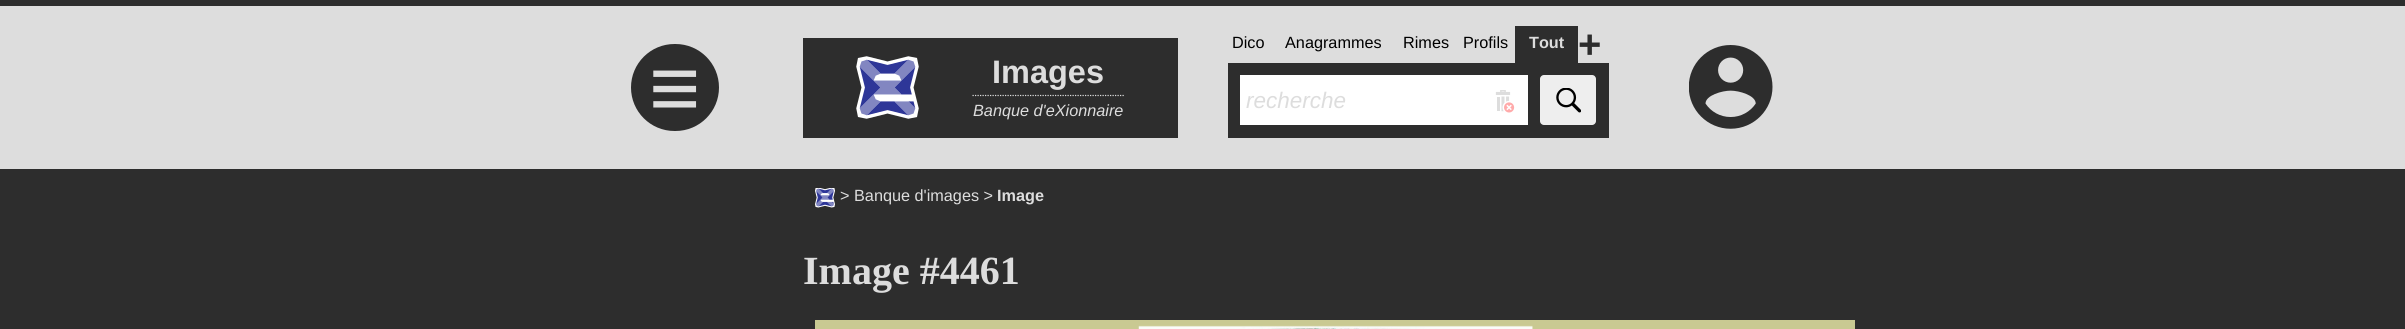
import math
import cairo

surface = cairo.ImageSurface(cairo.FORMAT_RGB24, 2405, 329)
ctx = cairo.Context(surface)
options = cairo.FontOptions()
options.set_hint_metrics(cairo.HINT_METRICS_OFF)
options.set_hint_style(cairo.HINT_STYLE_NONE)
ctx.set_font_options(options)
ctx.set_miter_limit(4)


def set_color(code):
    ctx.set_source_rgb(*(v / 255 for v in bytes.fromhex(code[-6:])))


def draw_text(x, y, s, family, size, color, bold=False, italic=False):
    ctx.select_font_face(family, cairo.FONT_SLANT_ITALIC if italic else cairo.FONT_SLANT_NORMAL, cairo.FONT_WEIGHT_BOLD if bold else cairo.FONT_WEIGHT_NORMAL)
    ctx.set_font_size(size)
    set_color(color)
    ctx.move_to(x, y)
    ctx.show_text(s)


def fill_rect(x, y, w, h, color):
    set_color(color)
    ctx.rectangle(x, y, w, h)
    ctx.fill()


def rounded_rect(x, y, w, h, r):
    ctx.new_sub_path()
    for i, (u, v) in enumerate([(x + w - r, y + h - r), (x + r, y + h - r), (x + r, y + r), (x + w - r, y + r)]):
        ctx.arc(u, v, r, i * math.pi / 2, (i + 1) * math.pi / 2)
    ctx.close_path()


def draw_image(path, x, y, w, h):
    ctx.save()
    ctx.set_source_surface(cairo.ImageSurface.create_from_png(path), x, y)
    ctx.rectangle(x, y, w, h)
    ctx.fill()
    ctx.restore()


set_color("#2d2d2d")
ctx.paint()
fill_rect(0, 6, 2405, 163, "#dddddd")
set_color("#2d2d2d")
rounded_rect(631, 44, 88, 87, 43.5)
ctx.fill()
draw_text(649, 118, "≡", "Liberation Sans", 88, "#dddddd")
fill_rect(803, 38, 375, 100, "#2d2d2d")
draw_image("assets/img1.png", 856, 56, 63, 63)
draw_text(992, 83, "Images", "Liberation Sans", 32.5, "#dddddd", bold=True)
ctx.new_path()
ctx.move_to(972.5, 95.5)
ctx.line_to(1124, 95.5)
ctx.set_line_width(1.2)
ctx.set_dash([1.25, 1.25])
ctx.stroke()
draw_text(973, 116, "Banque d'eXionnaire", "Liberation Sans", 16.25, "#dddddd", italic=True)
draw_image("assets/img2.png", 1689, 45, 84, 84)
draw_text(1232, 48, "Dico", "Liberation Sans", 16.25, "#000000")
draw_text(1285, 48, "Anagrammes", "Liberation Sans", 16.25, "#000000")
draw_text(1403, 48, "Rimes", "Liberation Sans", 16.25, "#000000")
draw_text(1463, 48, "Profils", "Liberation Sans", 16.25, "#000000")
fill_rect(1515, 26, 63, 37, "#2d2d2d")
draw_text(1529, 48, "Tout", "Liberation Sans", 16.25, "#dddddd", bold=True)
draw_text(1578, 58, "+", "Liberation Sans", 40, "#2d2d2d", bold=True)
fill_rect(1228, 63, 381, 75, "#2d2d2d")
fill_rect(1240, 75, 288, 50, "#ffffff")
draw_text(1246, 108, "recherche", "Liberation Sans", 22.5, "#dddddd", italic=True)
draw_image("assets/img3.png", 1495, 90, 20, 23)
set_color("#eeeeee")
rounded_rect(1540, 75, 56, 50, 4)
ctx.fill()
draw_image("assets/img4.png", 1556, 88, 25, 25)
draw_image("assets/img5.png", 815, 188, 20, 20)
draw_text(840, 201, "> Banque d'images >", "Liberation Sans", 16.25, "#dddddd")
draw_text(997, 201, "Image", "Liberation Sans", 16.25, "#dddddd", bold=True)
draw_text(803, 284, "Image #4461", "Liberation Serif", 40, "#dddddd", bold=True)
fill_rect(815, 320, 1040, 9, "#c9c992")
draw_image("assets/img6.png", 1138, 325, 395, 4)
surface.write_to_png("output.png")
